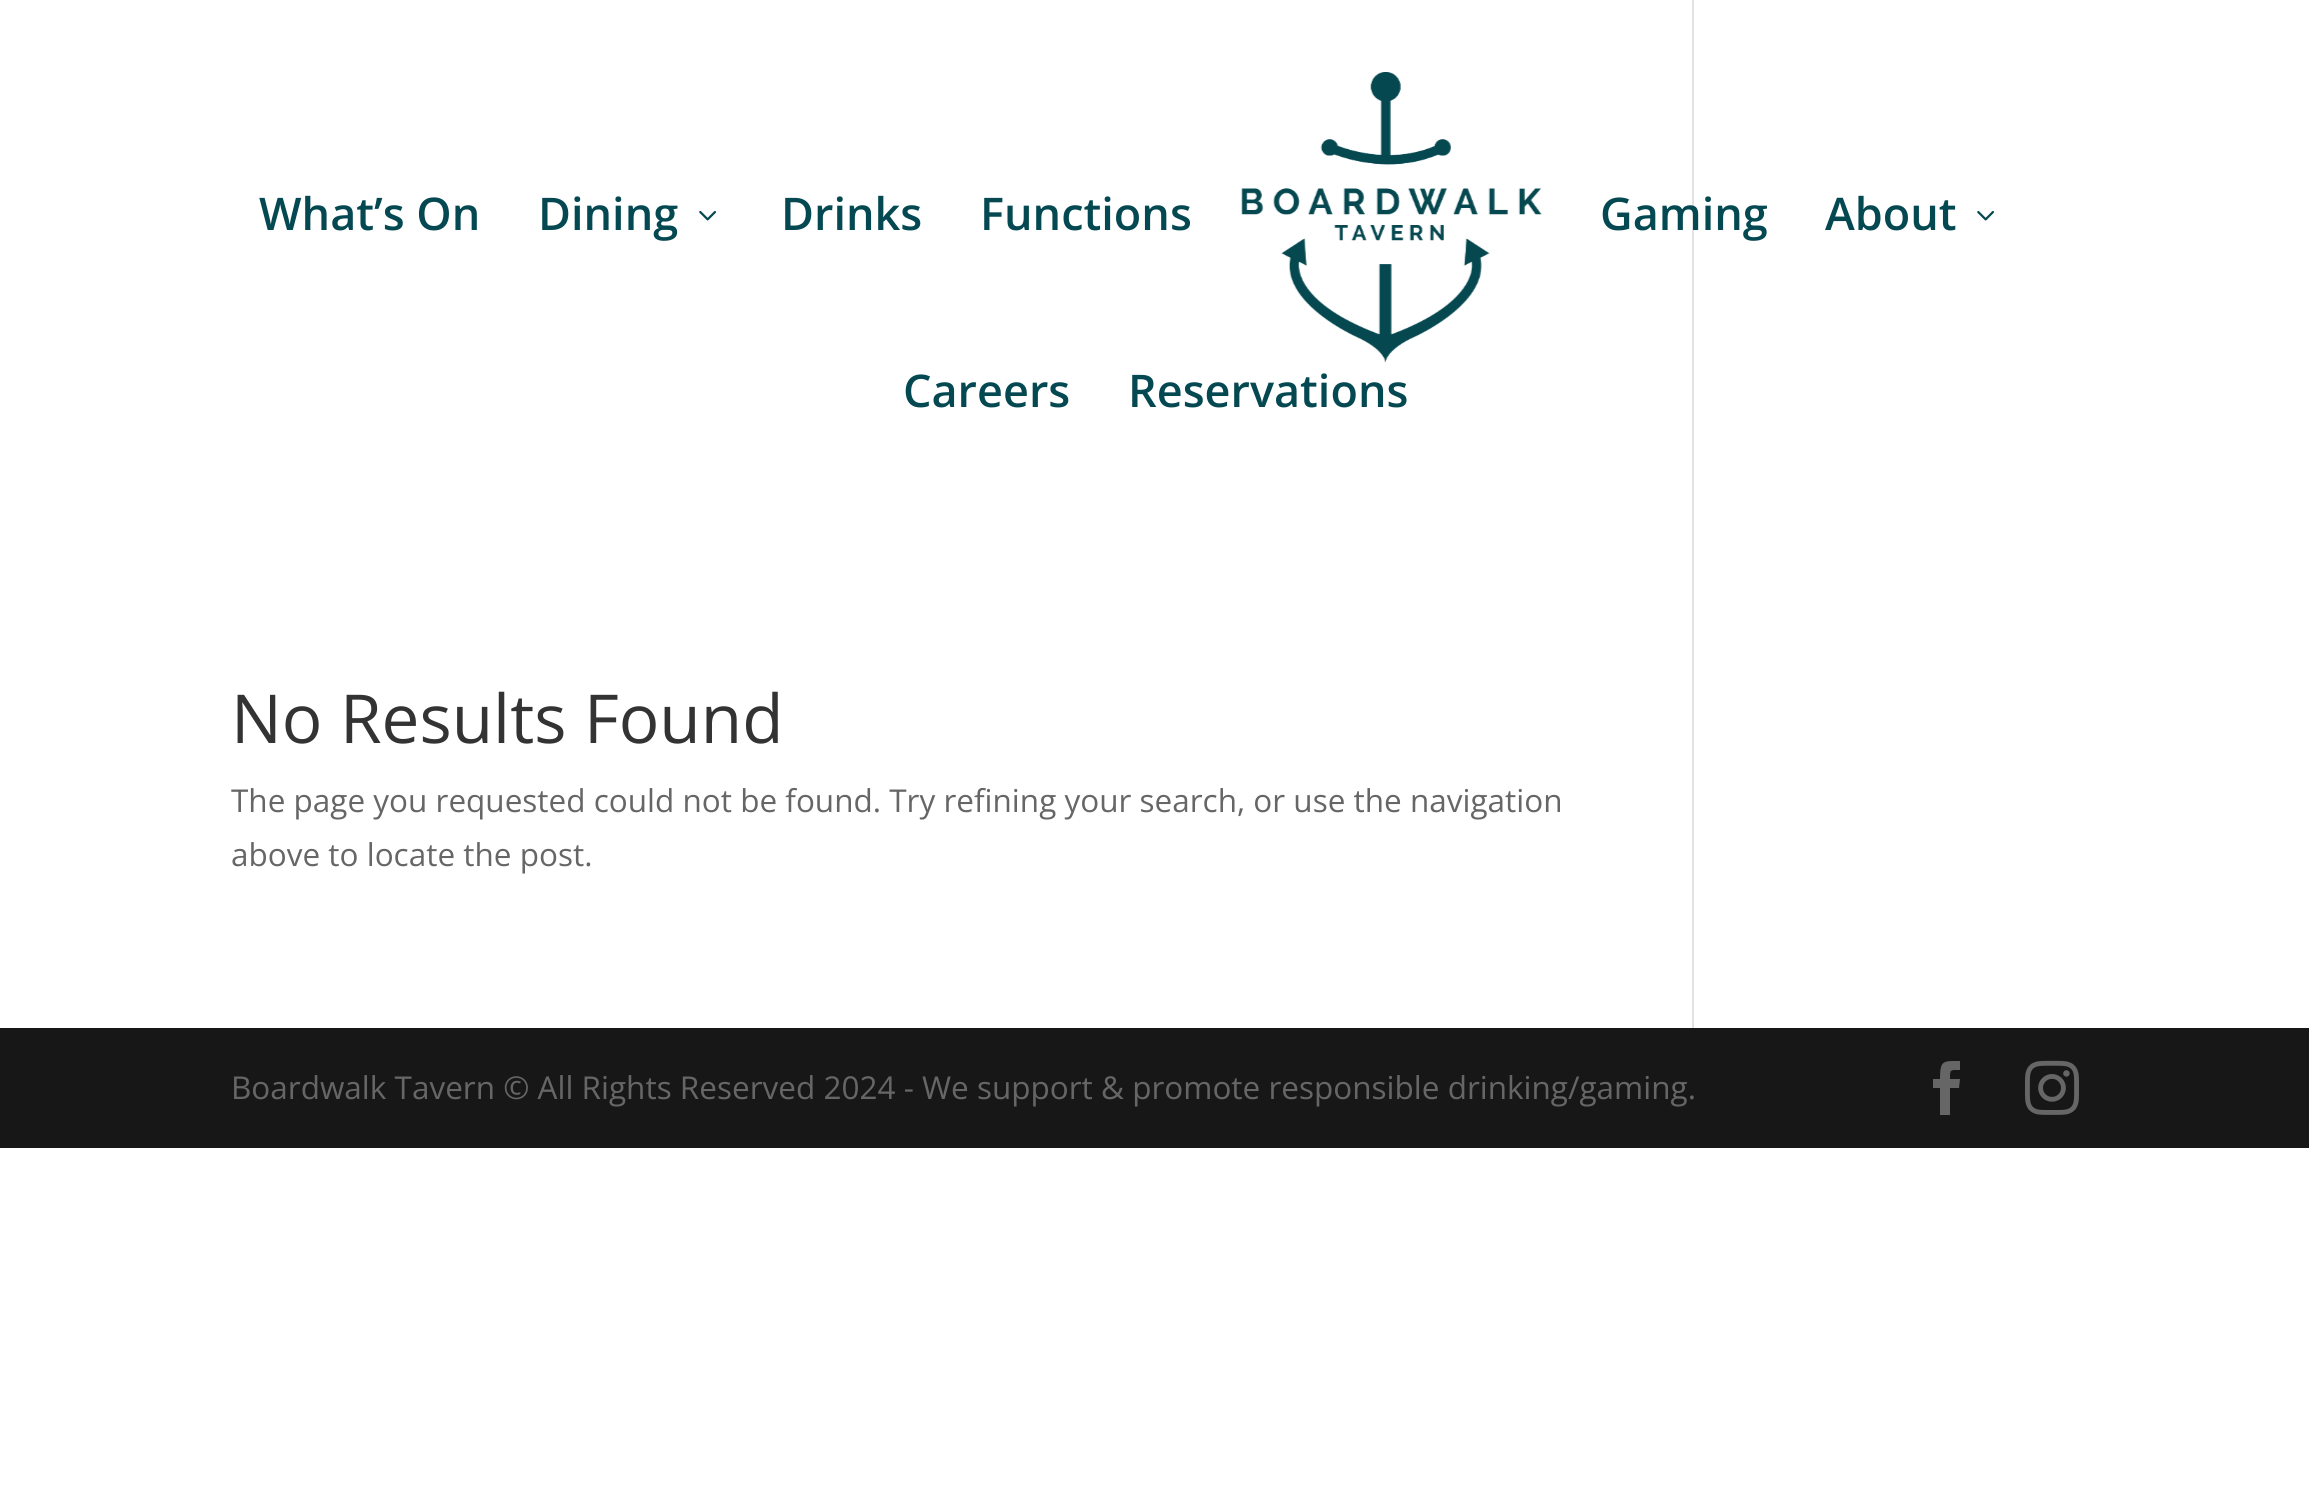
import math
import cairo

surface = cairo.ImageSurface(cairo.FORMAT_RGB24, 2309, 1510)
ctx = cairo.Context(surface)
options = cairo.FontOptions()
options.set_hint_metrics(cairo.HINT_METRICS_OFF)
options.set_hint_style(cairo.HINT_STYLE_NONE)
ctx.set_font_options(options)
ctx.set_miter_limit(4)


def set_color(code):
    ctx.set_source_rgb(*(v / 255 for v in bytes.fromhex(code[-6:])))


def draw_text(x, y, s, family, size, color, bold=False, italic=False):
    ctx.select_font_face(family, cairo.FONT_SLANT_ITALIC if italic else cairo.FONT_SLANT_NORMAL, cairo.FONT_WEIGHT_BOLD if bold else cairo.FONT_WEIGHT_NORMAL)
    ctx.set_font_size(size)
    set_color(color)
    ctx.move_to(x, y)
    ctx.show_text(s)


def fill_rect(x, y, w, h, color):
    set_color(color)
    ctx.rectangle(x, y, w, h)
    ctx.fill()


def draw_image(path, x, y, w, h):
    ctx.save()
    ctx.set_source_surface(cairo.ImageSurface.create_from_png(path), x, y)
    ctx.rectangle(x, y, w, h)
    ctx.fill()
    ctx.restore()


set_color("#ffffff")
ctx.paint()
draw_text(259, 230, "What’s On", "Open Sans SemiBold", 45, "#044851")
draw_text(538, 230, "Dining", "Open Sans SemiBold", 45, "#044851")
draw_image("assets/img1.png", 699, 211, 17, 10)
draw_text(781, 230, "Drinks", "Open Sans SemiBold", 45, "#044851")
draw_text(980, 230, "Functions", "Open Sans SemiBold", 45, "#044851")
draw_image("assets/img2.png", 1241, 72, 301, 291)
fill_rect(1692, 0, 2, 1028, "#e2e2e2")
draw_text(1600, 230, "Gaming", "Open Sans SemiBold", 45, "#044851")
draw_text(1825, 230, "About", "Open Sans SemiBold", 45, "#044851")
draw_image("assets/img1.png", 1977, 211, 17, 10)
draw_text(903, 407, "Careers", "Open Sans SemiBold", 45, "#044851")
draw_text(1128, 407, "Reservations", "Open Sans SemiBold", 45, "#044851")
draw_text(231, 743, "No Results Found", "Open Sans", 67.5, "#333333")
draw_text(231, 812, "The page you requested could not be found. Try refining your search, or use the navigation", "Open Sans", 31.5, "#666666")
draw_text(231, 866, "above to locate the post.", "Open Sans", 31.5, "#666666")
fill_rect(0, 1028, 2309, 120, "#171717")
draw_text(231, 1099, "Boardwalk Tavern © All Rights Reserved 2024 - We support & promote responsible drinking/gaming.", "Open Sans", 31.5, "#666666")
ctx.new_path()
ctx.move_to(1940, 1115)
ctx.line_to(1950, 1115)
ctx.line_to(1950, 1088)
ctx.line_to(1959, 1088)
ctx.line_to(1960, 1079)
ctx.line_to(1950, 1079)
ctx.curve_to(1950, 1069, 1950, 1070, 1960, 1070)
ctx.line_to(1960, 1061)
ctx.curve_to(1943, 1061, 1940, 1060, 1940, 1079)
ctx.line_to(1933, 1079)
ctx.line_to(1933, 1088)
ctx.line_to(1940, 1088)
ctx.close_path()
ctx.fill()
draw_image("assets/img3.png", 2025, 1060, 54, 55)
surface.write_to_png("output.png")
